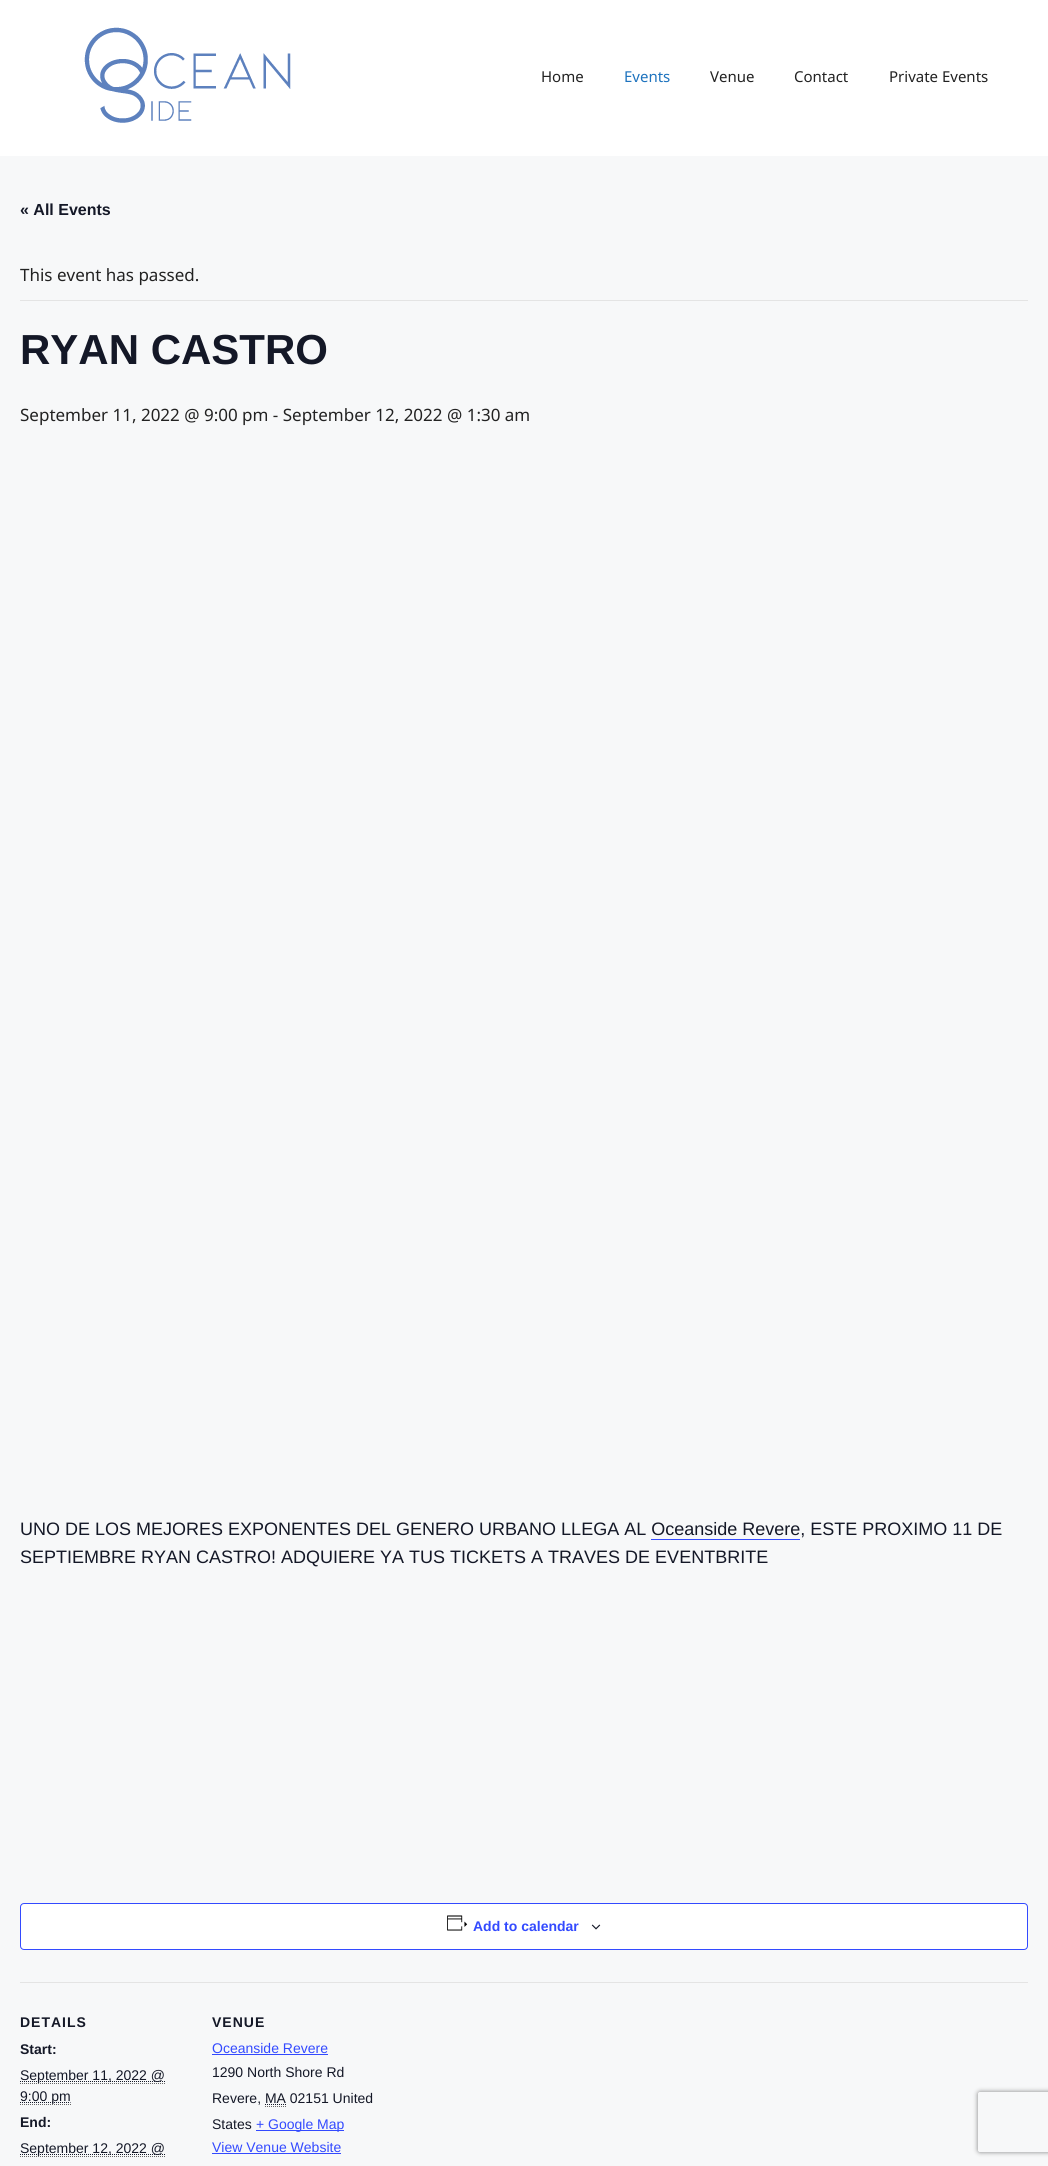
import math
import cairo

surface = cairo.ImageSurface(cairo.FORMAT_RGB24, 1048, 2166)
ctx = cairo.Context(surface)
options = cairo.FontOptions()
options.set_hint_metrics(cairo.HINT_METRICS_OFF)
options.set_hint_style(cairo.HINT_STYLE_NONE)
ctx.set_font_options(options)
ctx.set_miter_limit(4)


def set_color(code):
    ctx.set_source_rgb(*(v / 255 for v in bytes.fromhex(code[-6:])))


def draw_text(x, y, s, family, size, color, bold=False, italic=False):
    ctx.select_font_face(family, cairo.FONT_SLANT_ITALIC if italic else cairo.FONT_SLANT_NORMAL, cairo.FONT_WEIGHT_BOLD if bold else cairo.FONT_WEIGHT_NORMAL)
    ctx.set_font_size(size)
    set_color(color)
    ctx.move_to(x, y)
    ctx.show_text(s)


def draw_spaced(x, y, s, letter, word):
    ctx.move_to(x, y)
    for ch in s:
        ctx.show_text(ch)
        ctx.rel_move_to(letter + word * (ch == ' '), 0)


def fill_rect(x, y, w, h, color):
    set_color(color)
    ctx.rectangle(x, y, w, h)
    ctx.fill()


def rounded_rect(x, y, w, h, r):
    ctx.new_sub_path()
    for i, (u, v) in enumerate([(x + w - r, y + h - r), (x + r, y + h - r), (x + r, y + r), (x + w - r, y + r)]):
        ctx.arc(u, v, r, i * math.pi / 2, (i + 1) * math.pi / 2)
    ctx.close_path()


def draw_shadow(x, y, w, h, r, blur, alpha):
    ctx.push_group_with_content(cairo.CONTENT_ALPHA)
    ctx.set_operator(cairo.OPERATOR_SOURCE)
    for i in range(15, -16, -2):
        e = blur * i / 6
        if min(w, h) + 2 * e > 0:
            ctx.set_source_rgba(0, 0, 0, alpha * math.erfc((i - 1) / 8.5) / 2)
            rounded_rect(x - e, y - e, w + 2 * e, h + 2 * e, max(0, min(r + e + blur * .6, min(w, h) / 2 + e)))
            ctx.fill()
    ctx.mask(ctx.pop_group())


def draw_image(path, x, y, w, h):
    ctx.save()
    ctx.set_source_surface(cairo.ImageSurface.create_from_png(path), x, y)
    ctx.rectangle(x, y, w, h)
    ctx.fill()
    ctx.restore()


set_color("#f7f8f9")
ctx.paint()
fill_rect(0, 0, 1048, 156, "#ffffff")
draw_image("assets/img1.png", 84, 27, 207, 96)
draw_text(541, 82, "Home", "Noto Sans", 15, "#222222")
draw_text(624, 82, "Events", "Noto Sans", 15, "#1e73be")
draw_text(710, 82, "Venue", "Noto Sans", 15, "#222222")
draw_text(794, 82, "Contact", "Noto Sans", 15, "#222222")
draw_text(889, 82, "Private Events", "Noto Sans", 15, "#222222")
draw_text(20, 215, "« All Events", "Liberation Sans", 16, "#141827", bold=True)
fill_rect(20, 300, 1008, 1, "#e4e4e4")
draw_text(20, 281, "This event has passed.", "Noto Sans", 17, "#222222")
draw_text(20, 364, "RYAN CASTRO", "Liberation Sans", 42, "#141827", bold=True)
draw_text(20, 421, "September 11, 2022 @ 9:00 pm - September 12, 2022 @ 1:30 am", "Noto Sans", 17, "#222222")
draw_text(20, 1535, "UNO DE LOS MEJORES EXPONENTES DEL GENERO URBANO LLEGA AL Oceanside Revere, ESTE PROXIMO 11 DE", "Liberation Sans", 18, "#141827")
fill_rect(651, 1539, 149, 1, "#334aff")
draw_text(20, 1563, "SEPTIEMBRE RYAN CASTRO! ADQUIERE YA TUS TICKETS A TRAVES DE EVENTBRITE", "Liberation Sans", 18, "#141827")
set_color("#ffffff")
rounded_rect(20.5, 1903.5, 1007, 46, 3.5)
ctx.fill_preserve()
set_color("#334aff")
ctx.set_line_width(1)
ctx.stroke()
draw_image("assets/img2.png", 447, 1915, 21, 16)
draw_text(473, 1931, "Add to calendar", "Liberation Sans", 14, "#334aff", bold=True)
draw_image("assets/img3.png", 591, 1924, 10, 6)
fill_rect(20, 1982, 1008, 1, "#e4e4e4")
set_color("#141827")
draw_spaced(20, 2027, "DETAILS", 1, 0)
draw_text(20, 2054, "Start:", "Liberation Sans", 14, "#141827", bold=True)
ctx.new_path()
ctx.move_to(20, 2081.5)
ctx.line_to(165, 2081.5)
ctx.set_dash([1, 1])
ctx.stroke()
draw_text(20, 2080, "September 11, 2022 @", "Liberation Sans", 14, "#141827")
ctx.new_path()
ctx.move_to(20, 2083.5)
ctx.line_to(165, 2083.5)
set_color("#666666")
ctx.stroke()
ctx.new_path()
ctx.move_to(20, 2102.5)
ctx.line_to(70.5, 2102.5)
set_color("#141827")
ctx.stroke()
draw_text(20, 2101, "9:00 pm", "Liberation Sans", 14, "#141827")
ctx.new_path()
ctx.move_to(20, 2104.5)
ctx.line_to(71, 2104.5)
set_color("#666666")
ctx.stroke()
draw_text(20, 2127, "End:", "Liberation Sans", 14, "#141827", bold=True)
ctx.new_path()
ctx.move_to(20, 2154.5)
ctx.line_to(165, 2154.5)
ctx.stroke()
draw_text(20, 2153, "September 12, 2022 @", "Liberation Sans", 14, "#141827")
ctx.new_path()
ctx.move_to(20, 2156.5)
ctx.line_to(165, 2156.5)
set_color("#666666")
ctx.stroke()
ctx.select_font_face("Liberation Sans", cairo.FONT_SLANT_NORMAL, cairo.FONT_WEIGHT_BOLD)
set_color("#141827")
draw_spaced(212, 2027, "VENUE", 1, 0)
draw_text(212, 2053, "Oceanside Revere", "Liberation Sans", 14, "#334aff")
fill_rect(212, 2054, 116, 1, "#334aff")
draw_text(212, 2077, "1290 North Shore Rd", "Liberation Sans", 14, "#141827")
draw_text(212, 2103, "Revere, MA 02151 United", "Liberation Sans", 14, "#141827")
ctx.new_path()
ctx.move_to(265, 2106.5)
ctx.line_to(286, 2106.5)
set_color("#666666")
ctx.stroke()
ctx.new_path()
ctx.move_to(265, 2104.5)
ctx.line_to(286, 2104.5)
set_color("#141827")
ctx.stroke()
draw_text(212, 2129, "States", "Liberation Sans", 14, "#141827")
fill_rect(256, 2130, 88, 1, "#334aff")
draw_text(256, 2129, "+ Google Map", "Liberation Sans", 14, "#334aff")
draw_text(212, 2152, "View Venue Website", "Liberation Sans", 14, "#334aff")
fill_rect(212, 2153, 129, 1, "#334aff")
ctx.save()
ctx.set_fill_rule(cairo.FILL_RULE_EVEN_ODD)
ctx.new_path()
ctx.move_to(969, 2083)
ctx.line_to(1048, 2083)
ctx.line_to(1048, 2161)
ctx.line_to(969, 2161)
ctx.close_path()
ctx.move_to(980, 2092)
ctx.line_to(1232, 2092)
ctx.curve_to(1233, 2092, 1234, 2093, 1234, 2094)
ctx.line_to(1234, 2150)
ctx.curve_to(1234, 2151, 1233, 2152, 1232, 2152)
ctx.line_to(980, 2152)
ctx.curve_to(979, 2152, 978, 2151, 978, 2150)
ctx.line_to(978, 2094)
ctx.curve_to(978, 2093, 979, 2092, 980, 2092)
ctx.close_path()
ctx.clip()
set_color("#808080")
draw_shadow(978, 2092, 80, 60, 2, 2.5, 1)
ctx.restore()
surface.write_to_png("output.png")
